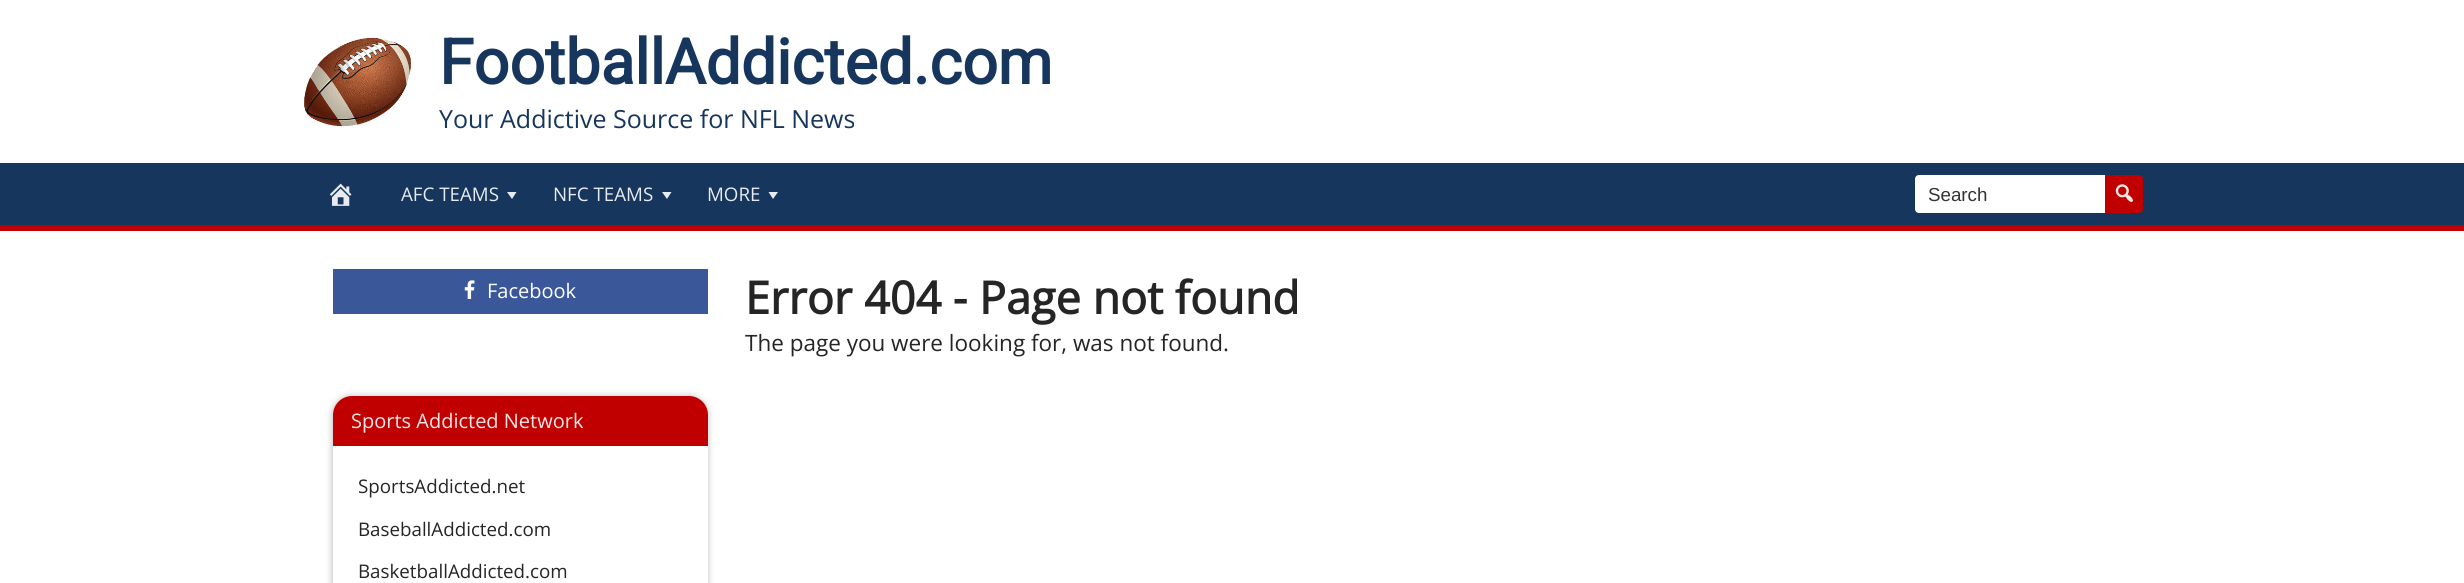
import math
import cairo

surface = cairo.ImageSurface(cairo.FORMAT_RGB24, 2464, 583)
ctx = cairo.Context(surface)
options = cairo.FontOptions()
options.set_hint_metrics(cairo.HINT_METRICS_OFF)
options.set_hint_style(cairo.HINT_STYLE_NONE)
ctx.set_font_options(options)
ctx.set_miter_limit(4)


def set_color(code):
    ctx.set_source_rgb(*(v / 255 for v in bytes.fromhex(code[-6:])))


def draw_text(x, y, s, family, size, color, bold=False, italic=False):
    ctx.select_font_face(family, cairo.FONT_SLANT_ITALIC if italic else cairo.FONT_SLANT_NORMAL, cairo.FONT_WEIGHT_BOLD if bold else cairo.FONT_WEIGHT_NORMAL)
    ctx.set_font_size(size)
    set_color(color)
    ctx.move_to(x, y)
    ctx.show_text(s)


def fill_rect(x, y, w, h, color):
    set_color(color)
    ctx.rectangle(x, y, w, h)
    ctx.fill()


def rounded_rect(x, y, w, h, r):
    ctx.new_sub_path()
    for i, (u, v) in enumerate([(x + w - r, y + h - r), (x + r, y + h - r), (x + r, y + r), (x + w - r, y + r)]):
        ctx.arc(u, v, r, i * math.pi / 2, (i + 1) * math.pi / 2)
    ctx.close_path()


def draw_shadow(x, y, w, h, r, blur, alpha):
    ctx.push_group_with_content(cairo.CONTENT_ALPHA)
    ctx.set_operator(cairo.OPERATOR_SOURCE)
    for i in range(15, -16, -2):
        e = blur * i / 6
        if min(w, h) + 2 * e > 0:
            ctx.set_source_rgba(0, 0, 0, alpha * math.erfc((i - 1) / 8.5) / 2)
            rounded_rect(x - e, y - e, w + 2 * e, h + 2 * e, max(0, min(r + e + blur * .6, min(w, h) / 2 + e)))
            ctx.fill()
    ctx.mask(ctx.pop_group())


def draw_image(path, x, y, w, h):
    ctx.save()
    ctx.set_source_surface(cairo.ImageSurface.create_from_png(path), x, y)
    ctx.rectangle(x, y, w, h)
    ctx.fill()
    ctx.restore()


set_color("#ffffff")
ctx.paint()
draw_image("assets/img1.png", 304, 37, 107, 90)
draw_text(439, 84, "FootballAddicted.com", "Roboto", 62.5, "#17365d", bold=True)
draw_text(439, 128, "Your Addictive Source for NFL News", "Open Sans", 25, "#17365d")
fill_rect(0, 163, 2464, 62, "#17365d")
fill_rect(0, 225, 2464, 6, "#c00000")
draw_image("assets/img2.png", 329, 183, 23, 23)
draw_text(401, 201, "AFC TEAMS", "Open Sans", 18.75, "#e8ebef")
ctx.new_path()
ctx.move_to(516.5, 192)
ctx.line_to(512, 199)
ctx.line_to(507, 192)
ctx.close_path()
ctx.fill()
draw_text(553, 201, "NFC TEAMS", "Open Sans", 18.75, "#e8ebef")
ctx.new_path()
ctx.move_to(671.5, 192)
ctx.line_to(667, 199)
ctx.line_to(662, 192)
ctx.close_path()
ctx.fill()
draw_text(707, 201, "MORE", "Open Sans", 18.75, "#e8ebef")
ctx.new_path()
ctx.move_to(778, 192)
ctx.line_to(773, 199)
ctx.line_to(768.5, 192)
ctx.close_path()
ctx.fill()
set_color("#ffffff")
rounded_rect(1915, 175, 225, 38, 4)
ctx.fill()
draw_text(1928, 201, "Search", "Liberation Sans", 18.75, "#333333")
set_color("#c00000")
ctx.new_path()
ctx.move_to(2105, 175)
ctx.line_to(2139, 175)
ctx.curve_to(2141, 175, 2143, 177, 2143, 179)
ctx.line_to(2143, 209)
ctx.curve_to(2143, 211, 2141, 213, 2139, 213)
ctx.line_to(2105, 213)
ctx.close_path()
ctx.fill()
draw_image("assets/img3.png", 2115, 184, 18, 18)
fill_rect(333, 269, 375, 45, "#3a579a")
draw_image("assets/img4.png", 464, 280, 11, 19)
draw_text(487, 298, "Facebook", "Open Sans", 20, "#ffffff")
set_color("#000000")
draw_shadow(331, 395, 378, 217, 20, 3, 0.2)
set_color("#ffffff")
rounded_rect(333, 396, 375, 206, 19)
ctx.fill()
set_color("#c00000")
ctx.new_path()
ctx.move_to(352, 396)
ctx.line_to(689, 396)
ctx.curve_to(699.5, 396, 708, 404.5, 708, 415)
ctx.line_to(708, 446)
ctx.line_to(333, 446)
ctx.line_to(333, 415)
ctx.curve_to(333, 404.5, 341.5, 396, 352, 396)
ctx.close_path()
ctx.fill()
draw_text(351, 428, "Sports Addicted Network", "Open Sans", 20, "#f9e6e6")
draw_text(358, 493, "SportsAddicted.net", "Open Sans", 18.75, "#252525")
draw_text(358, 536, "BaseballAddicted.com", "Open Sans", 18.75, "#252525")
draw_text(358, 578, "BasketballAddicted.com", "Open Sans", 18.75, "#252525")
draw_text(745, 314, "Error 404 - Page not found", "Open Sans", 45, "#252525", bold=True)
draw_text(745, 351, "The page you were looking for, was not found.", "Open Sans", 22.5, "#252525")
surface.write_to_png("output.png")
